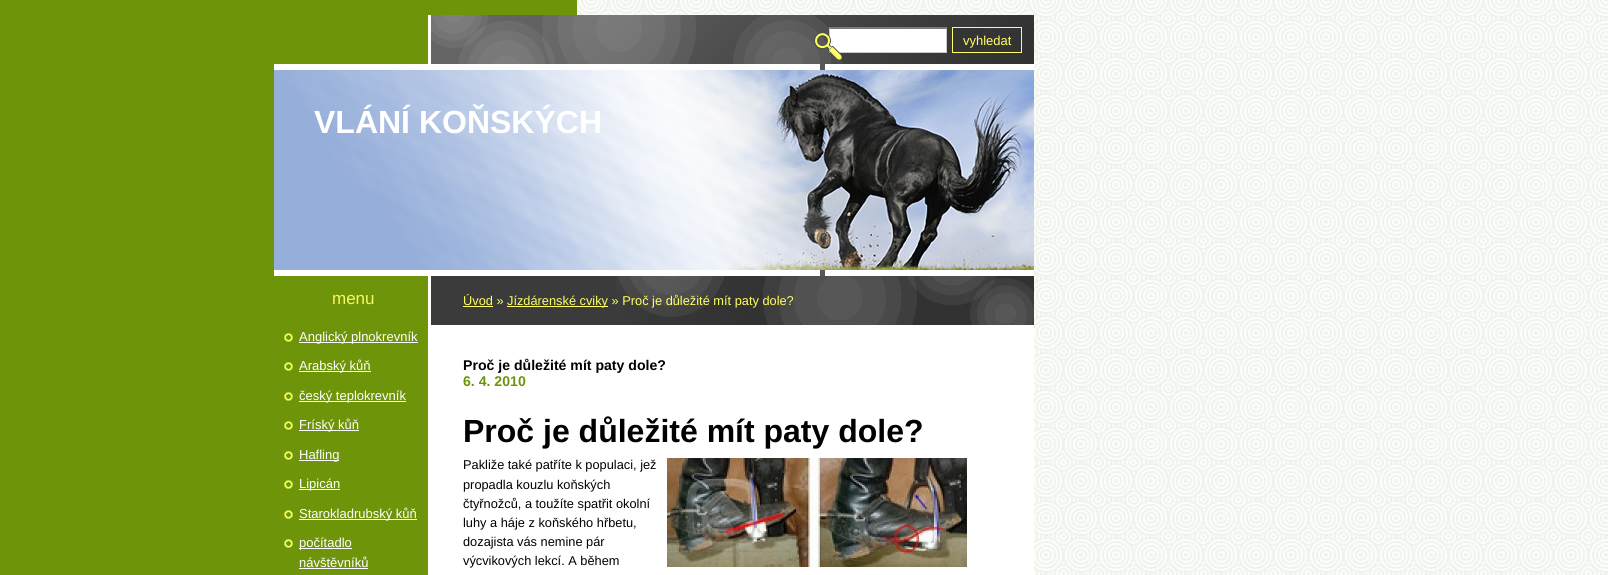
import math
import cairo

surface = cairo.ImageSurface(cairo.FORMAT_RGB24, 1608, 575)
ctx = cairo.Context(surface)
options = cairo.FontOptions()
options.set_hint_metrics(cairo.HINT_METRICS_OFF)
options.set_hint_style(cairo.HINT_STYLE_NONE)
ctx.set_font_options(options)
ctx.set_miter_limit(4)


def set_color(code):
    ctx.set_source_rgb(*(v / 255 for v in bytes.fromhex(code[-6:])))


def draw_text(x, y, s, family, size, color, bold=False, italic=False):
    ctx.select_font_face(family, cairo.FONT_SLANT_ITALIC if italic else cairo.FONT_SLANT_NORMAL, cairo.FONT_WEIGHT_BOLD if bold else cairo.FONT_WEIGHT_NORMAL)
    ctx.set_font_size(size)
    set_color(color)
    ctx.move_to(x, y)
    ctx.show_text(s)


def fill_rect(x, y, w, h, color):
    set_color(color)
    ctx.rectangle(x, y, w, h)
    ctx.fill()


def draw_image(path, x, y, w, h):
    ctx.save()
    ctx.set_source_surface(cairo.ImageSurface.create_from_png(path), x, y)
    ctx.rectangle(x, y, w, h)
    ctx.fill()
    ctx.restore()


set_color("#6e9409")
ctx.paint()
draw_image("assets/img1.png", 577, 0, 1031, 575)
draw_image("assets/img2.png", 428, 15, 3, 560)
draw_image("assets/img3.png", 431, 15, 603, 49)
fill_rect(830, 29, 116, 23, "#ffffff")
set_color("#7a7a7a")
ctx.new_path()
ctx.move_to(829, 27)
ctx.line_to(947, 27)
ctx.line_to(946, 29)
ctx.line_to(830, 29)
ctx.close_path()
ctx.fill()
set_color("#c9c9c9")
ctx.new_path()
ctx.move_to(947, 27)
ctx.line_to(947, 53)
ctx.line_to(946, 52)
ctx.line_to(946, 29)
ctx.close_path()
ctx.fill()
fill_rect(829, 52, 118, 1, "#c9c9c9")
ctx.new_path()
ctx.move_to(829, 53)
ctx.line_to(829, 27)
ctx.line_to(830, 29)
ctx.line_to(830, 52)
ctx.close_path()
ctx.fill()
draw_image("assets/img4.png", 814, 33, 29, 27)
fill_rect(953, 28, 30, 24, "#343434")
ctx.rectangle(952.5, 27.5, 69, 25)
set_color("#ffff64")
ctx.set_line_width(1)
ctx.stroke()
draw_text(963, 45, "vyhledat", "Liberation Sans", 13, "#ffff64")
draw_text(332, 304, "menu", "Liberation Sans", 17, "#f7fa5f")
draw_image("assets/img5.png", 284, 333, 9, 9)
fill_rect(299, 342, 119, 1, "#ffffff")
draw_text(299, 341, "Anglický plnokrevník", "Liberation Sans", 13, "#ffffff")
draw_image("assets/img5.png", 284, 362, 9, 9)
fill_rect(299, 371, 72, 1, "#ffffff")
draw_text(299, 370, "Arabský kůň", "Liberation Sans", 13, "#ffffff")
draw_image("assets/img5.png", 284, 392, 9, 9)
fill_rect(299, 401, 107, 1, "#ffffff")
draw_text(299, 400, "český teplokrevník", "Liberation Sans", 13, "#ffffff")
draw_image("assets/img5.png", 284, 421, 9, 9)
fill_rect(299, 430, 60, 1, "#ffffff")
draw_text(299, 429, "Fríský kůň", "Liberation Sans", 13, "#ffffff")
draw_image("assets/img5.png", 284, 451, 9, 9)
fill_rect(299, 460, 40, 1, "#ffffff")
draw_text(299, 459, "Hafling", "Liberation Sans", 13, "#ffffff")
draw_image("assets/img5.png", 284, 480, 9, 9)
fill_rect(299, 489, 41, 1, "#ffffff")
draw_text(299, 488, "Lipicán", "Liberation Sans", 13, "#ffffff")
draw_image("assets/img5.png", 284, 510, 9, 9)
fill_rect(299, 519, 118, 1, "#ffffff")
draw_text(299, 518, "Starokladrubský kůň", "Liberation Sans", 13, "#ffffff")
draw_image("assets/img5.png", 284, 539, 9, 9)
fill_rect(299, 548, 53, 1, "#ffffff")
draw_text(299, 547, "počítadlo", "Liberation Sans", 13, "#ffffff")
draw_text(299, 567, "návštěvníků", "Liberation Sans", 13, "#ffffff")
fill_rect(299, 568, 69, 1, "#ffffff")
fill_rect(431, 325, 603, 250, "#ffffff")
fill_rect(431, 276, 185, 49, "#3b3b3b")
draw_image("assets/img6.png", 616, 276, 418, 49)
draw_text(463, 305, "Úvod »", "Liberation Sans", 12.8, "#ffff64")
fill_rect(463, 306, 30, 1, "#ffff64")
fill_rect(507, 306, 101, 1, "#ffff64")
draw_text(507, 305, "Jízdárenské cviky » Proč je důležité mít paty dole?", "Liberation Sans", 12.8, "#ffff64")
draw_text(463, 370, "Proč je důležité mít paty dole?", "Liberation Sans", 14.1, "#000000", bold=True)
draw_text(463, 386, "6. 4. 2010", "Liberation Sans", 14.1, "#6e9409", bold=True)
draw_text(463, 442, "Proč je důležité mít paty dole?", "Liberation Sans", 32, "#000000", bold=True)
draw_image("assets/img7.png", 667, 458, 300, 109)
draw_text(463, 469, "Pakliže také patříte k populaci, jež", "Liberation Sans", 12.8, "#000000")
draw_text(463, 489, "propadla kouzlu koňských", "Liberation Sans", 12.8, "#000000")
draw_text(463, 508, "čtyřnožců, a toužíte spatřit okolní", "Liberation Sans", 12.8, "#000000")
draw_text(463, 527, "luhy a háje z koňského hřbetu,", "Liberation Sans", 12.8, "#000000")
draw_text(463, 546, "dozajista vás nemine pár", "Liberation Sans", 12.8, "#000000")
draw_text(463, 565, "výcvikových lekcí. A během", "Liberation Sans", 12.8, "#000000")
fill_rect(274, 64, 760, 212, "#ffffff")
fill_rect(820, 64, 5, 212, "#575757")
draw_image("assets/img8.png", 274, 70, 760, 200)
draw_text(314, 133, "VLÁNÍ KOŇSKÝCH", "Liberation Sans", 32, "#ffffff", bold=True)
surface.write_to_png("output.png")
